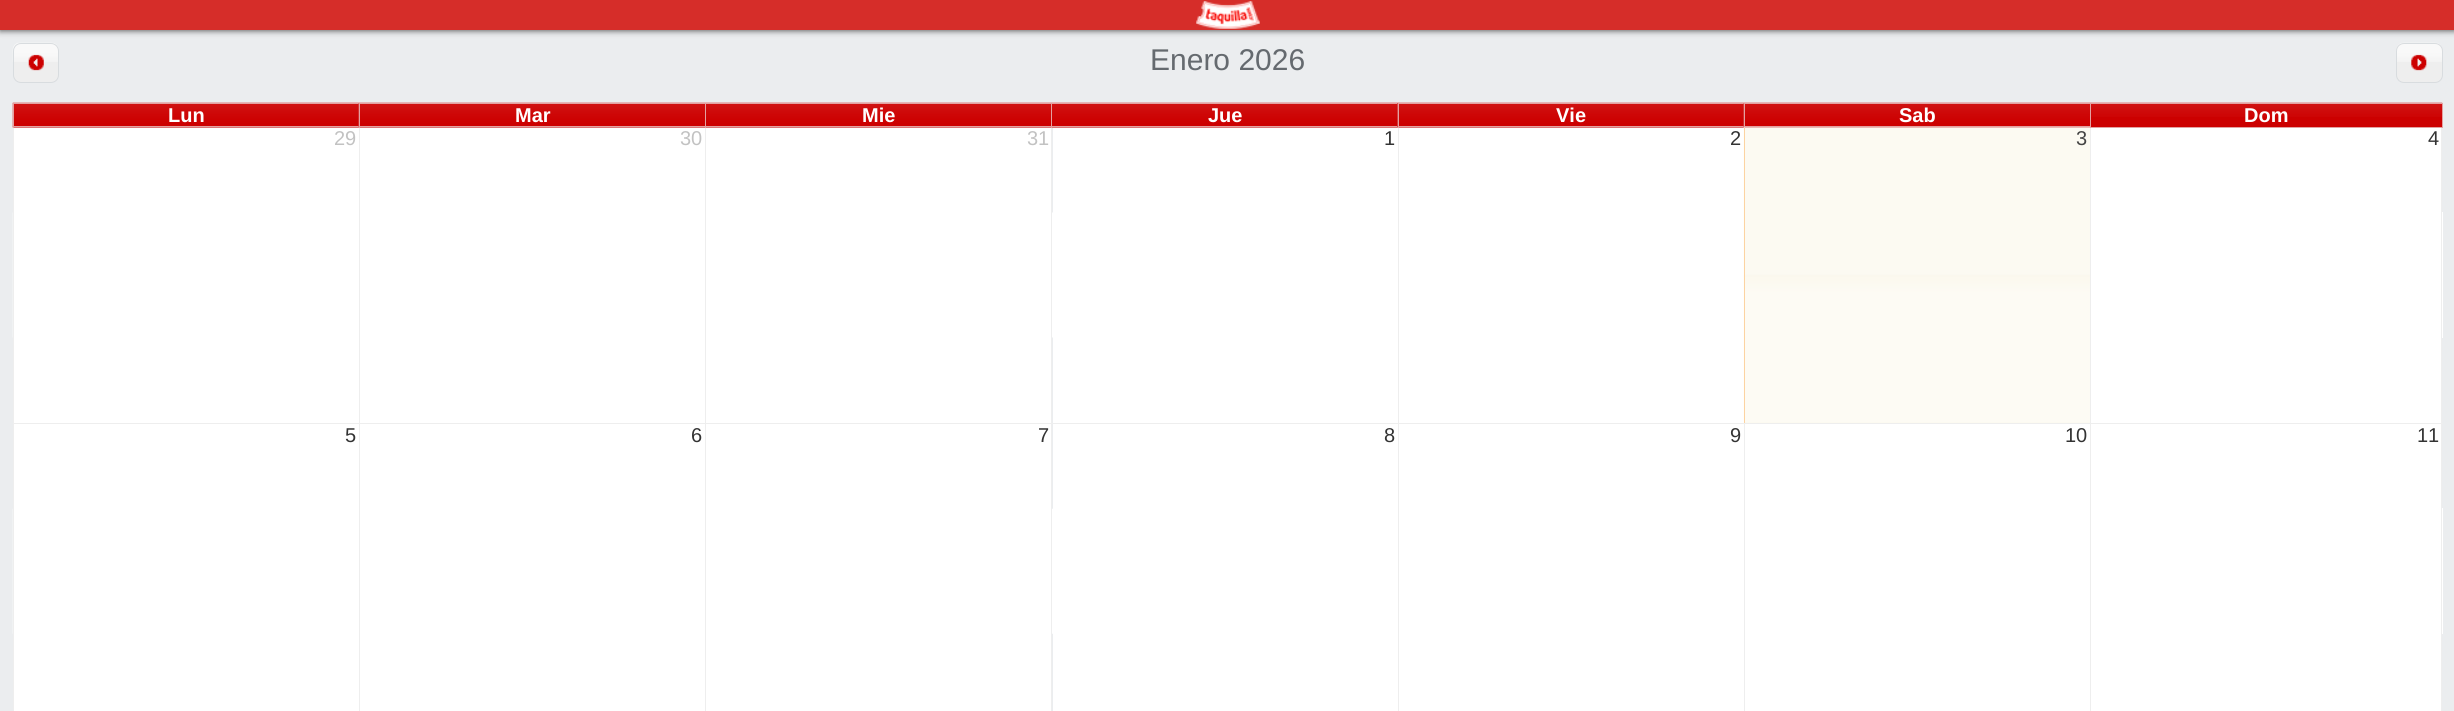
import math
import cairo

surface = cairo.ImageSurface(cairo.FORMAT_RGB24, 2454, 711)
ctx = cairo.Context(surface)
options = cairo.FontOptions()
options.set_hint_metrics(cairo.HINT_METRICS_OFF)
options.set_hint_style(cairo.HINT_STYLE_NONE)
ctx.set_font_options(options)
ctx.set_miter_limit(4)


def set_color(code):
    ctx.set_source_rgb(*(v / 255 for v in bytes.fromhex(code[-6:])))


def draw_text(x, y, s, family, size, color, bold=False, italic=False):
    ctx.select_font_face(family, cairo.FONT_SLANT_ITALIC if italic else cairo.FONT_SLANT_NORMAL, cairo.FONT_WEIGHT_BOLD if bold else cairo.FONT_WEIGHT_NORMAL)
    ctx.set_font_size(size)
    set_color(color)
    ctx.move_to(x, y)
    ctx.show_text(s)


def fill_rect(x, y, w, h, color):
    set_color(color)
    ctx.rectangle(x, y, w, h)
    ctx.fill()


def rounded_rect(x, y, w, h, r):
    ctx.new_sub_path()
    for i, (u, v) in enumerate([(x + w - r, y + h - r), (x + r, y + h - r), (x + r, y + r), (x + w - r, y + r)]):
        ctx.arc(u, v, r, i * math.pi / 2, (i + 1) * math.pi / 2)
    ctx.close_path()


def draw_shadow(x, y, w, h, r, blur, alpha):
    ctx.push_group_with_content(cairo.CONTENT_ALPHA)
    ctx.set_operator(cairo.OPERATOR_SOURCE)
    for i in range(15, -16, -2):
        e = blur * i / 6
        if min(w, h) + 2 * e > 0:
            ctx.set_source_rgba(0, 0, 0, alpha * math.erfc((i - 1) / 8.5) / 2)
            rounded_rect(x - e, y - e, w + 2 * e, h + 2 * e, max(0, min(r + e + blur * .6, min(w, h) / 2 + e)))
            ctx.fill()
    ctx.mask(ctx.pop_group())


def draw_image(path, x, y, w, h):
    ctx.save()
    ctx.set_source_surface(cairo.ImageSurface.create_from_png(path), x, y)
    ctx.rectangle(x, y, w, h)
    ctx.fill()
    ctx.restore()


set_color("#ebedef")
ctx.paint()
set_color("#323232")
draw_shadow(0, 1, 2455, 30, 0, 3, 0.75)
fill_rect(0, 0, 2454, 30, "#d62d29")
draw_image("assets/img1.png", 1196, 1, 64, 28)
set_color("#eeeeee")
rounded_rect(13, 43, 46, 40, 8)
ctx.fill()
draw_image("assets/img2.png", 12, 42, 47, 20)
rounded_rect(13.5, 43.5, 45, 39, 7.5)
set_color("#d8dcdf")
ctx.set_line_width(1)
ctx.stroke()
draw_image("assets/img3.png", 28, 54, 16, 17)
draw_text(1150, 70, "Enero 2026", "Liberation Sans", 30, "#656a6f")
set_color("#eeeeee")
rounded_rect(2396, 43, 47, 40, 8)
ctx.fill()
draw_image("assets/img4.png", 2396, 42, 46, 20)
rounded_rect(2396.5, 43.5, 46, 39, 7.5)
set_color("#d8dcdf")
ctx.stroke()
draw_image("assets/img5.png", 2411, 54, 16, 17)
draw_image("assets/img6.png", 12, 102, 347, 26)
fill_rect(13, 103, 346, 1, "#e3a1a1")
fill_rect(13, 126, 346, 1, "#e3a1a1")
fill_rect(13, 103, 1, 25, "#e3a1a1")
draw_text(168, 122, "Lun", "Liberation Sans", 20, "#ffffff", bold=True)
draw_image("assets/img7.png", 358, 102, 347, 26)
fill_rect(359, 103, 346, 1, "#e3a1a1")
fill_rect(359, 126, 346, 1, "#e3a1a1")
fill_rect(359, 103, 1, 25, "#e3a1a1")
draw_text(515, 122, "Mar", "Liberation Sans", 20, "#ffffff", bold=True)
draw_image("assets/img8.png", 705, 102, 347, 26)
fill_rect(705, 103, 346, 1, "#e3a1a1")
fill_rect(705, 126, 346, 1, "#e3a1a1")
fill_rect(705, 103, 1, 25, "#e3a1a1")
draw_text(862, 122, "Mie", "Liberation Sans", 20, "#ffffff", bold=True)
draw_image("assets/img9.png", 1051, 102, 347, 26)
fill_rect(1051, 103, 347, 1, "#e3a1a1")
fill_rect(1051, 126, 347, 1, "#e3a1a1")
fill_rect(1051, 103, 1, 25, "#e3a1a1")
draw_text(1208, 122, "Jue", "Liberation Sans", 20, "#ffffff", bold=True)
draw_image("assets/img10.png", 1397, 102, 347, 26)
fill_rect(1398, 103, 346, 1, "#e3a1a1")
fill_rect(1398, 126, 346, 1, "#e3a1a1")
fill_rect(1398, 103, 1, 25, "#e3a1a1")
draw_text(1556, 122, "Vie", "Liberation Sans", 20, "#ffffff", bold=True)
draw_image("assets/img7.png", 1743, 102, 347, 26)
fill_rect(1744, 103, 346, 1, "#e3a1a1")
fill_rect(1744, 126, 346, 1, "#e3a1a1")
fill_rect(1744, 103, 1, 25, "#e3a1a1")
draw_text(1899, 122, "Sab", "Liberation Sans", 20, "#ffffff", bold=True)
fill_rect(2091, 117, 351, 10, "#cc0000")
draw_image("assets/img11.png", 2090, 102, 353, 15)
ctx.rectangle(2090.5, 103.5, 352, 24)
set_color("#e3a1a1")
ctx.stroke()
draw_text(2244, 122, "Dom", "Liberation Sans", 20, "#ffffff", bold=True)
fill_rect(14, 128, 345, 295, "#ffffff")
draw_image("assets/img12.png", 12, 212, 1, 126)
fill_rect(13, 128, 1, 295, "#eeeeee")
draw_text(334, 145, "29", "Liberation Sans", 20, "#c2c2c2")
fill_rect(360, 128, 345, 295, "#ffffff")
fill_rect(359, 128, 1, 295, "#eeeeee")
draw_text(680, 145, "30", "Liberation Sans", 20, "#c2c2c2")
fill_rect(706, 128, 345, 295, "#ffffff")
fill_rect(705, 128, 1, 295, "#eeeeee")
draw_text(1027, 145, "31", "Liberation Sans", 20, "#c2c2c2")
fill_rect(1053, 128, 345, 295, "#ffffff")
draw_image("assets/img13.png", 1052, 212, 1, 126)
fill_rect(1051, 128, 1, 295, "#eeeeee")
draw_text(1384, 145, "1", "Liberation Sans", 20, "#333333")
fill_rect(1399, 128, 345, 295, "#ffffff")
fill_rect(1398, 128, 1, 295, "#eeeeee")
draw_text(1730, 145, "2", "Liberation Sans", 20, "#333333")
fill_rect(1745, 422, 345, 1, "#fbf8ee")
draw_image("assets/img14.png", 1743, 127, 347, 296)
fill_rect(1744, 128, 1, 295, "#fcd3a1")
draw_text(2076, 145, "3", "Liberation Sans", 20, "#444444")
fill_rect(2091, 128, 350, 295, "#ffffff")
fill_rect(2441, 212, 2, 126, "#ffffff")
fill_rect(2441, 128, 1, 295, "#eeeeee")
fill_rect(2090, 128, 1, 295, "#eeeeee")
draw_text(2428, 145, "4", "Liberation Sans", 20, "#333333")
fill_rect(14, 424, 345, 287, "#ffffff")
draw_image("assets/img15.png", 12, 508, 1, 126)
fill_rect(13, 423, 2430, 1, "#eeeeee")
fill_rect(13, 423, 1, 288, "#eeeeee")
draw_text(345, 442, "5", "Liberation Sans", 20, "#333333")
fill_rect(360, 424, 345, 287, "#ffffff")
fill_rect(359, 423, 1, 288, "#eeeeee")
draw_text(691, 442, "6", "Liberation Sans", 20, "#333333")
fill_rect(706, 424, 345, 287, "#ffffff")
fill_rect(705, 423, 1, 288, "#eeeeee")
draw_text(1038, 442, "7", "Liberation Sans", 20, "#333333")
fill_rect(1053, 424, 345, 287, "#ffffff")
draw_image("assets/img16.png", 1052, 508, 1, 126)
fill_rect(1051, 423, 1, 288, "#eeeeee")
draw_text(1384, 442, "8", "Liberation Sans", 20, "#333333")
fill_rect(1399, 424, 345, 287, "#ffffff")
fill_rect(1398, 423, 1, 288, "#eeeeee")
draw_text(1730, 442, "9", "Liberation Sans", 20, "#333333")
fill_rect(1745, 424, 345, 287, "#ffffff")
fill_rect(1744, 423, 1, 288, "#eeeeee")
draw_text(2065, 442, "10", "Liberation Sans", 20, "#333333")
fill_rect(2091, 424, 350, 287, "#ffffff")
fill_rect(2441, 508, 2, 126, "#ffffff")
fill_rect(2441, 423, 1, 288, "#eeeeee")
fill_rect(2090, 423, 1, 288, "#eeeeee")
draw_text(2417, 442, "11", "Liberation Sans", 20, "#333333")
surface.write_to_png("output.png")
